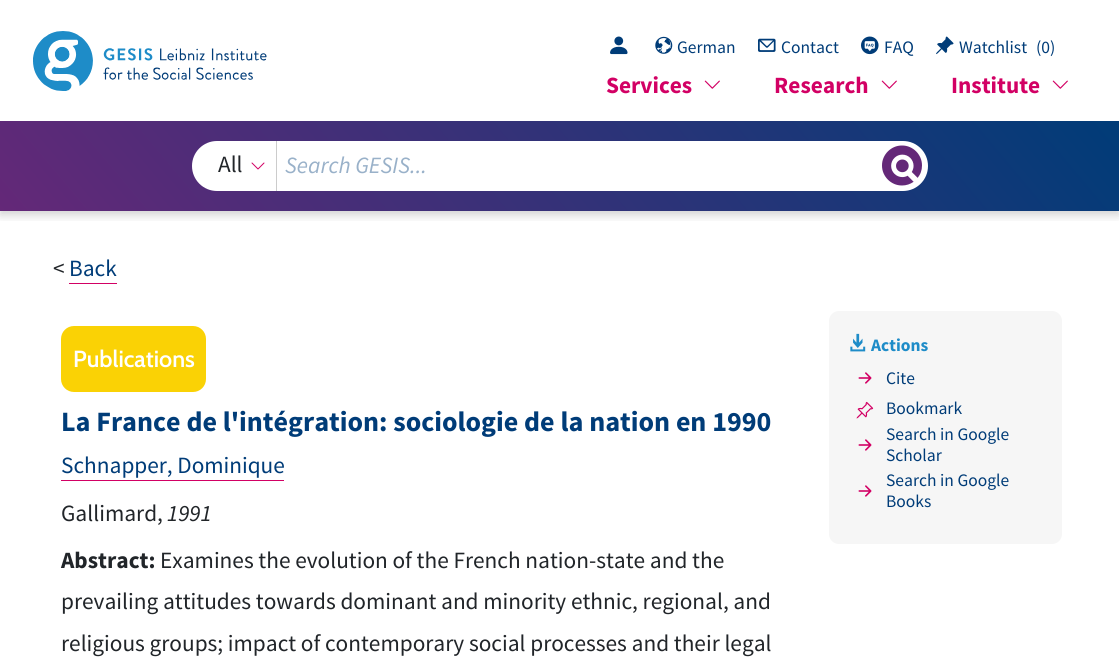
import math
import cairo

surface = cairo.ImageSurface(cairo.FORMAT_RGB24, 1119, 657)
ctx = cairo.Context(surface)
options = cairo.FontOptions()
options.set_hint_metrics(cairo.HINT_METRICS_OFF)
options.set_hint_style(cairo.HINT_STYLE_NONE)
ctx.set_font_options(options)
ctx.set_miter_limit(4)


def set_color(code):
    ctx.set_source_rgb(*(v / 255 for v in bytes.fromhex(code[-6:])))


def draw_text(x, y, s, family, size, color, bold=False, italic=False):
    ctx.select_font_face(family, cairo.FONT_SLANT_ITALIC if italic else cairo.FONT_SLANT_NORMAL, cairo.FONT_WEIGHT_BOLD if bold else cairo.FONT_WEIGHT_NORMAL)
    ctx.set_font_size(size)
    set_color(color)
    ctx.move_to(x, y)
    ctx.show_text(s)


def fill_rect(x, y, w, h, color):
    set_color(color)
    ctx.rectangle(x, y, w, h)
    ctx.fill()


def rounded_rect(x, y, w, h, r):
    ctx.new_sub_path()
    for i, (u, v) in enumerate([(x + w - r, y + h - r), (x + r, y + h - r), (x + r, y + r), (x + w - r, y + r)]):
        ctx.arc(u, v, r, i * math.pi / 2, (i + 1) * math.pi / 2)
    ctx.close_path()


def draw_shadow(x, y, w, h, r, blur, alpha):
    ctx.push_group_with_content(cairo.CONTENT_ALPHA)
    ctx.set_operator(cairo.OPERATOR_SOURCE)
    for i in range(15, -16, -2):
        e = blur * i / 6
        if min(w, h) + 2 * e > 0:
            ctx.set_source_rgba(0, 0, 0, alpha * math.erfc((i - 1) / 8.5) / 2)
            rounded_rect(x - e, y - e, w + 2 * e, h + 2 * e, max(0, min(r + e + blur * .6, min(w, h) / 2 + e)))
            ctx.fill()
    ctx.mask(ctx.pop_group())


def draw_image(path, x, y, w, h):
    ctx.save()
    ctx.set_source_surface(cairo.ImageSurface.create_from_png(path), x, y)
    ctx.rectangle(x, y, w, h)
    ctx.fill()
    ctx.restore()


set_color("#ffffff")
ctx.paint()
ctx.save()
ctx.rectangle(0, 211, 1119, 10)
ctx.clip()
set_color("#000000")
draw_shadow(0, 4, 1119, 211, 0, 5, 0.18)
ctx.restore()
draw_image("assets/img1.png", 33, 31, 234, 60)
draw_image("assets/img2.png", 610, 36, 18, 19)
draw_image("assets/img3.png", 655, 36, 18, 18)
draw_text(677, 53, "German", "Source Sans Pro", 17.5, "#003c78")
draw_image("assets/img4.png", 758, 38, 18, 14)
draw_text(781, 53, "Contact", "Source Sans Pro", 17.5, "#003c78")
draw_image("assets/img5.png", 861, 36, 18, 19)
draw_text(884, 53, "FAQ", "Source Sans Pro", 17.5, "#003c78")
draw_image("assets/img6.png", 936, 36, 18, 19)
draw_text(959, 53, "Watchlist", "Source Sans Pro", 17.5, "#003c78")
draw_text(1036, 53, "(0)", "Source Sans Pro", 17.5, "#003c78")
draw_text(606, 93, "Services", "Source Sans Pro", 23.3, "#d20064", bold=True)
draw_image("assets/img7.png", 704, 80, 16, 9)
draw_text(774, 93, "Research", "Source Sans Pro", 23.3, "#d20064", bold=True)
draw_image("assets/img7.png", 881, 80, 16, 9)
draw_text(951, 93, "Institute", "Source Sans Pro", 23.3, "#d20064", bold=True)
draw_image("assets/img7.png", 1052, 80, 16, 9)
gradient = cairo.LinearGradient(209, 460, 910, -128)
gradient.add_color_stop_rgba(0, 0.392, 0.157, 0.471, 1)
gradient.add_color_stop_rgba(1, 0, 0.235, 0.471, 1)
ctx.set_source(gradient)
ctx.rectangle(0, 121, 1119, 90)
ctx.fill()
set_color("#ffffff")
rounded_rect(192, 141, 736, 50, 25)
ctx.fill()
draw_image("assets/img8.png", 251, 162, 14, 8)
fill_rect(276, 141, 1, 50, "#cccccc")
draw_text(218, 172, "All", "Source Sans Pro", 23.3, "#212529")
draw_text(285, 173, "Search GESIS...", "Source Sans Pro", 23.3, "#99b1c9", italic=True)
draw_image("assets/img9.png", 882, 145, 40, 41)
draw_text(53, 276, "<", "Source Sans Pro", 23.3, "#212529")
draw_text(69, 276, "Back", "Source Sans Pro", 23.3, "#003c78")
fill_rect(69, 283, 48, 1, "#d20064")
set_color("#fad205")
rounded_rect(62, 327, 143, 64, 12)
ctx.fill_preserve()
ctx.stroke()
draw_text(73, 367, "Publications", "Cabin SemiBold", 23.3, "#ffffff")
draw_text(61, 431, "La France de l'intégration: sociologie de la nation en 1990", "Source Sans Pro", 28, "#003c78", bold=True)
draw_text(61, 473, "Schnapper, Dominique", "Source Sans Pro", 23.3, "#003c78")
fill_rect(61, 480, 223, 1, "#d20064")
draw_text(61, 521, "Gallimard,", "Source Sans Pro", 23.3, "#212529")
draw_text(167, 521, "1991", "Source Sans Pro", 23.3, "#212529", italic=True)
draw_text(61, 568, "Abstract:", "Source Sans Pro", 23.3, "#212529", bold=True)
draw_text(160, 568, "Examines the evolution of the French nation-state and the", "Source Sans Pro", 23.3, "#212529")
draw_text(61, 609, "prevailing attitudes towards dominant and minority ethnic, regional, and", "Source Sans Pro", 23.3, "#212529")
draw_text(61, 651, "religious groups; impact of contemporary social processes and their legal", "Source Sans Pro", 23.3, "#212529")
set_color("#f6f6f6")
rounded_rect(829, 311, 233, 233, 10)
ctx.fill()
draw_image("assets/img10.png", 850, 333, 16, 19)
draw_text(871, 351, "Actions", "Source Sans Pro", 17.5, "#1e8cc8", bold=True)
draw_image("assets/img11.png", 858, 372, 14, 12)
draw_text(886, 384, "Cite", "Source Sans Pro", 17.5, "#003c78")
draw_image("assets/img12.png", 856, 401, 18, 18)
draw_text(886, 414, "Bookmark", "Source Sans Pro", 17.5, "#003c78")
draw_image("assets/img11.png", 858, 439, 14, 12)
draw_text(886, 440, "Search in Google", "Source Sans Pro", 17.5, "#003c78")
draw_text(886, 461, "Scholar", "Source Sans Pro", 17.5, "#003c78")
draw_image("assets/img11.png", 858, 485, 14, 12)
draw_text(886, 486, "Search in Google", "Source Sans Pro", 17.5, "#003c78")
draw_text(886, 507, "Books", "Source Sans Pro", 17.5, "#003c78")
surface.write_to_png("output.png")
